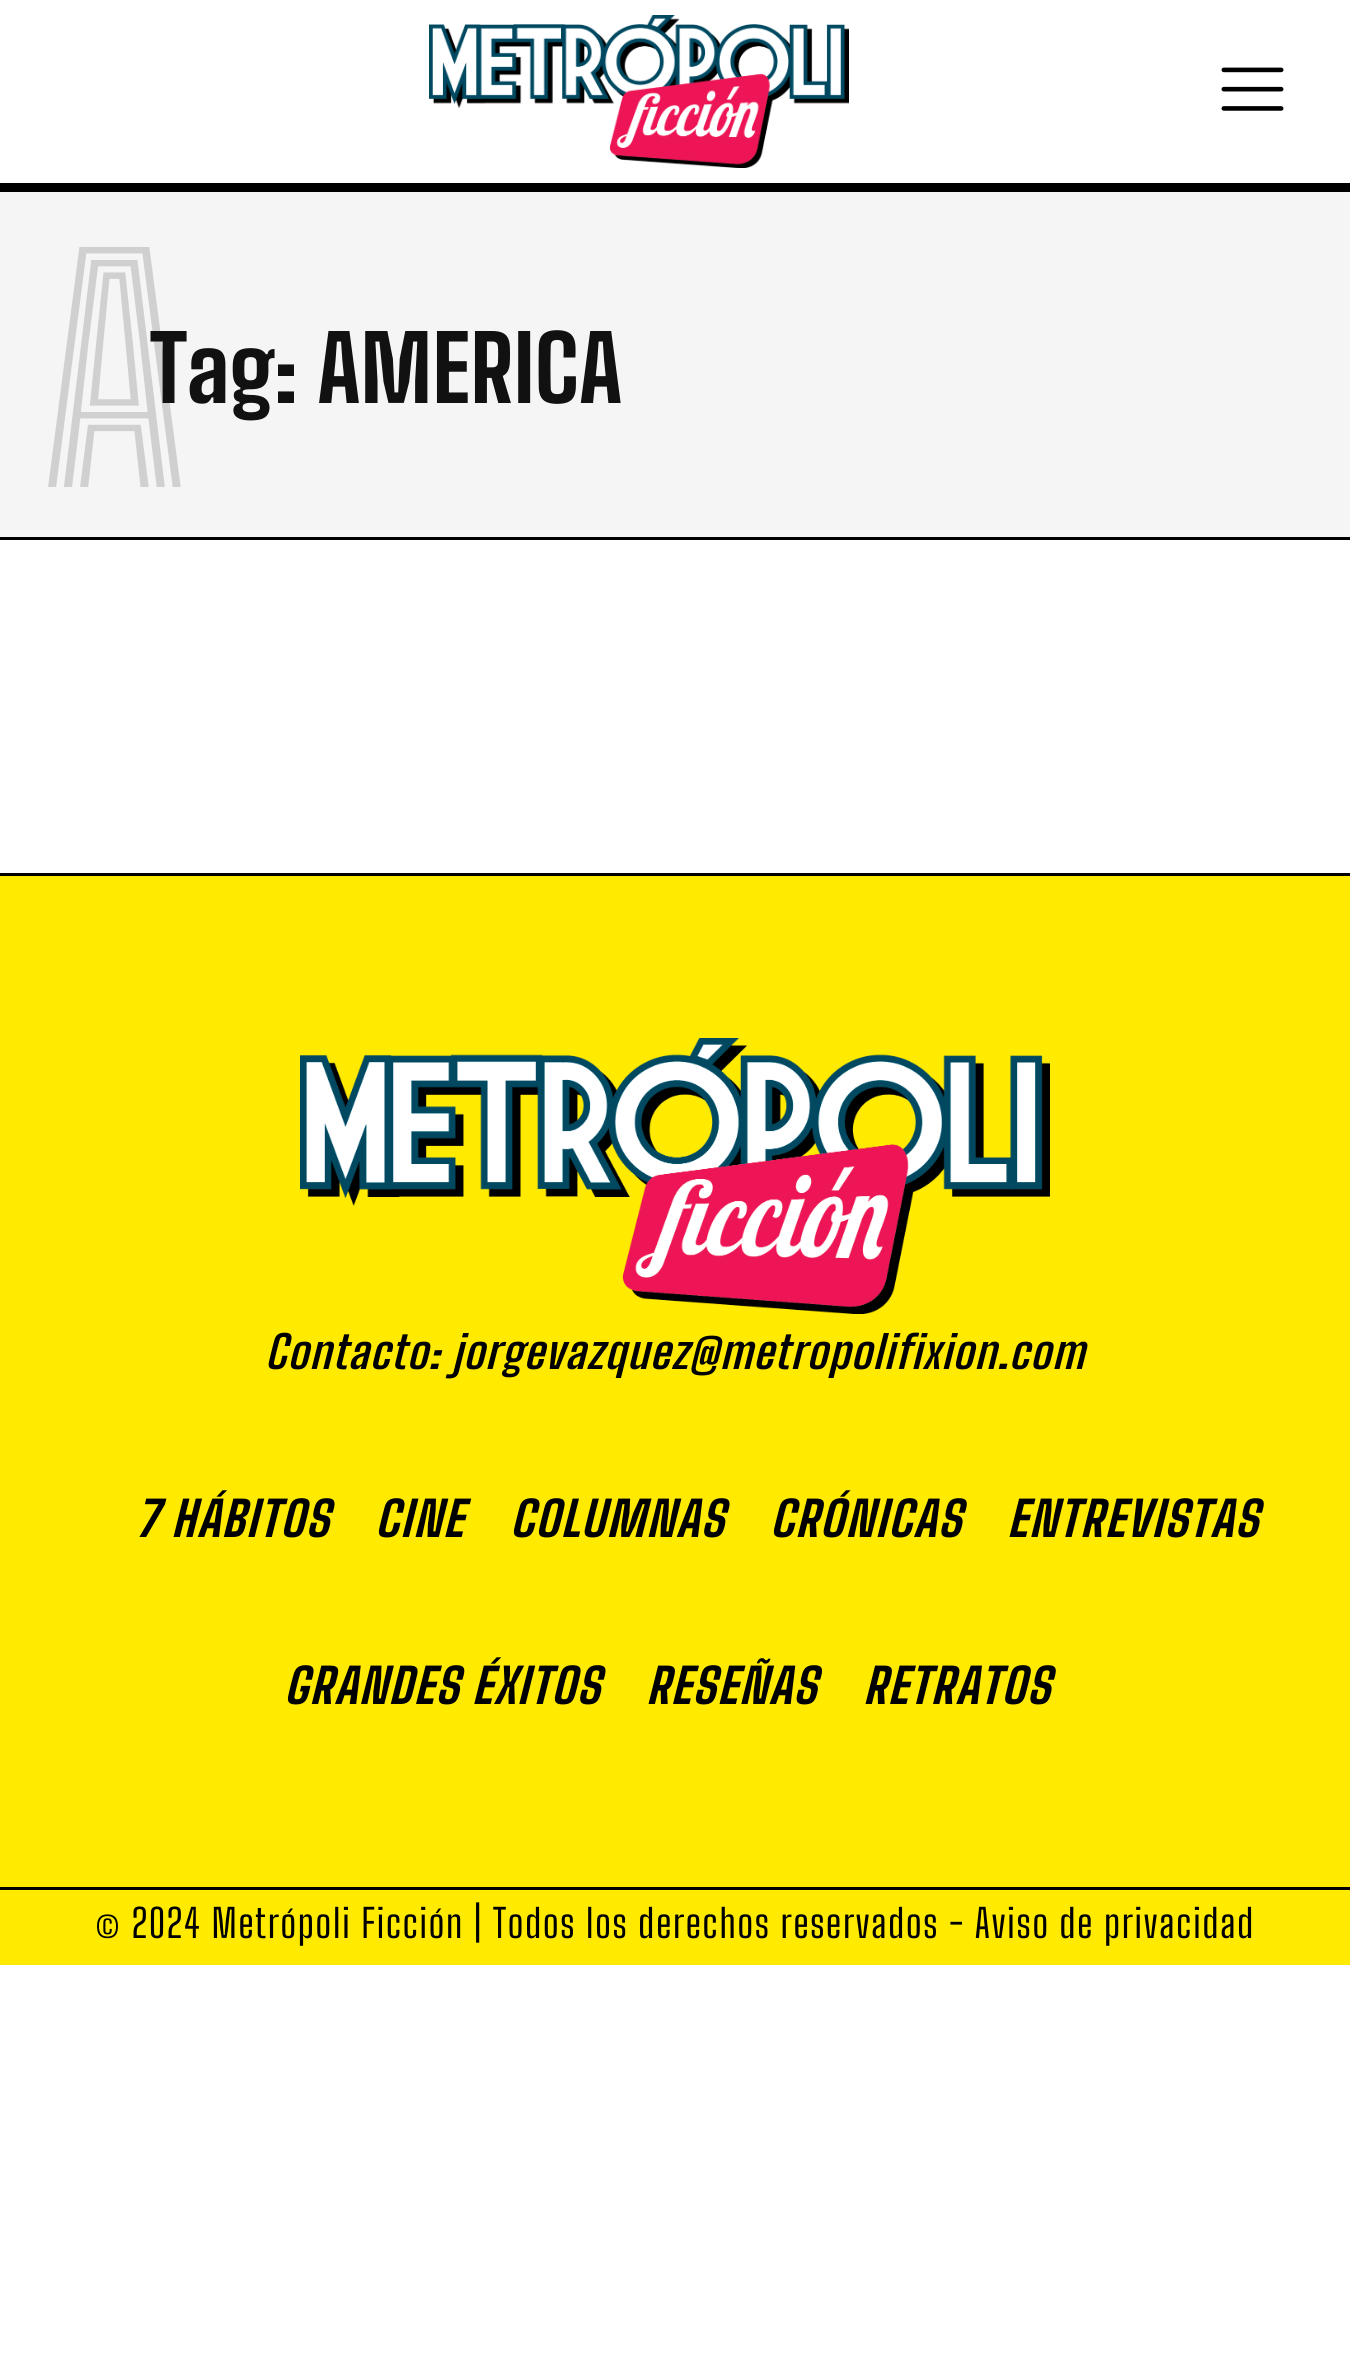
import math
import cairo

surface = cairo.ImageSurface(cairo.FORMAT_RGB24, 1350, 2373)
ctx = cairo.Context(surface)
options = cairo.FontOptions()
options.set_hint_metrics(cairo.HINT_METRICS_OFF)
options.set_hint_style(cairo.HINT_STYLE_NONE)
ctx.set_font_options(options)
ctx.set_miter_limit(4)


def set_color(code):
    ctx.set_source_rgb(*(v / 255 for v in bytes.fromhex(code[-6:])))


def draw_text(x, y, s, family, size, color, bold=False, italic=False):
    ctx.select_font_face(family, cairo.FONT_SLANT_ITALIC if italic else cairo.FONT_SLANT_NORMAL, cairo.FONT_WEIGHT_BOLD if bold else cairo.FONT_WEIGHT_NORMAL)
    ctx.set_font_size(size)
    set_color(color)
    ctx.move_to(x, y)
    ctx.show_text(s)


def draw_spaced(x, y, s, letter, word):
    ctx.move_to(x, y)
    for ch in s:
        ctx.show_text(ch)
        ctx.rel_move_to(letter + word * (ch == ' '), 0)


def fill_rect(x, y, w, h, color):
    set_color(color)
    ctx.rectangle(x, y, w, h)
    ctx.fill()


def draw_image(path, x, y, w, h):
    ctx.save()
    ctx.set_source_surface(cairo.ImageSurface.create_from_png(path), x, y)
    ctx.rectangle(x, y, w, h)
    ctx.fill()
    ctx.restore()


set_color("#ffffff")
ctx.paint()
fill_rect(0, 183, 1350, 9, "#000000")
draw_image("assets/img1.png", 429, 15, 420, 153)
draw_image("assets/img2.png", 1221, 67, 63, 44)
fill_rect(0, 192, 1350, 345, "#f5f5f5")
fill_rect(0, 537, 1350, 3, "#000000")
draw_text(42, 487, "A", "Big Shoulders Inline Text ExtraBold", 300, "#d0d0d0")
draw_text(150, 403, "Tag: AMERICA", "Big Shoulders Text ExtraBold", 90, "#111111")
fill_rect(0, 876, 1350, 1011, "#ffea00")
fill_rect(0, 873, 1350, 3, "#000000")
draw_image("assets/img3.png", 300, 1038, 750, 276)
ctx.select_font_face("Big Shoulders Text", cairo.FONT_SLANT_ITALIC, cairo.FONT_WEIGHT_BOLD)
ctx.set_font_size(45)
draw_spaced(265, 1369, "Contacto: jorgevazquez@metropolifixion.com", 1.5, 0)
ctx.select_font_face("Big Shoulders Text ExtraBold", cairo.FONT_SLANT_ITALIC)
ctx.set_font_size(48)
draw_spaced(136, 1537, "7 HÁBITOS", 1.5, 0)
draw_spaced(375, 1537, "CINE", 1.5, 0)
draw_spaced(510, 1537, "COLUMNAS", 1.5, 0)
draw_spaced(770, 1537, "CRÓNICAS", 1.5, 0)
draw_spaced(1007, 1537, "ENTREVISTAS", 1.5, 0)
draw_spaced(284, 1704, "GRANDES ÉXITOS", 1.5, 0)
draw_spaced(646, 1704, "RESEÑAS", 1.5, 0)
draw_spaced(863, 1704, "RETRATOS", 1.5, 0)
fill_rect(0, 1890, 1350, 75, "#ffea00")
fill_rect(0, 1887, 1350, 3, "#000000")
ctx.select_font_face("Big Shoulders Text")
ctx.set_font_size(39)
draw_spaced(95, 1938, "© 2024 Metrópoli Ficción | Todos los derechos reservados - Aviso de privacidad", 1.8, 0)
surface.write_to_png("output.png")
